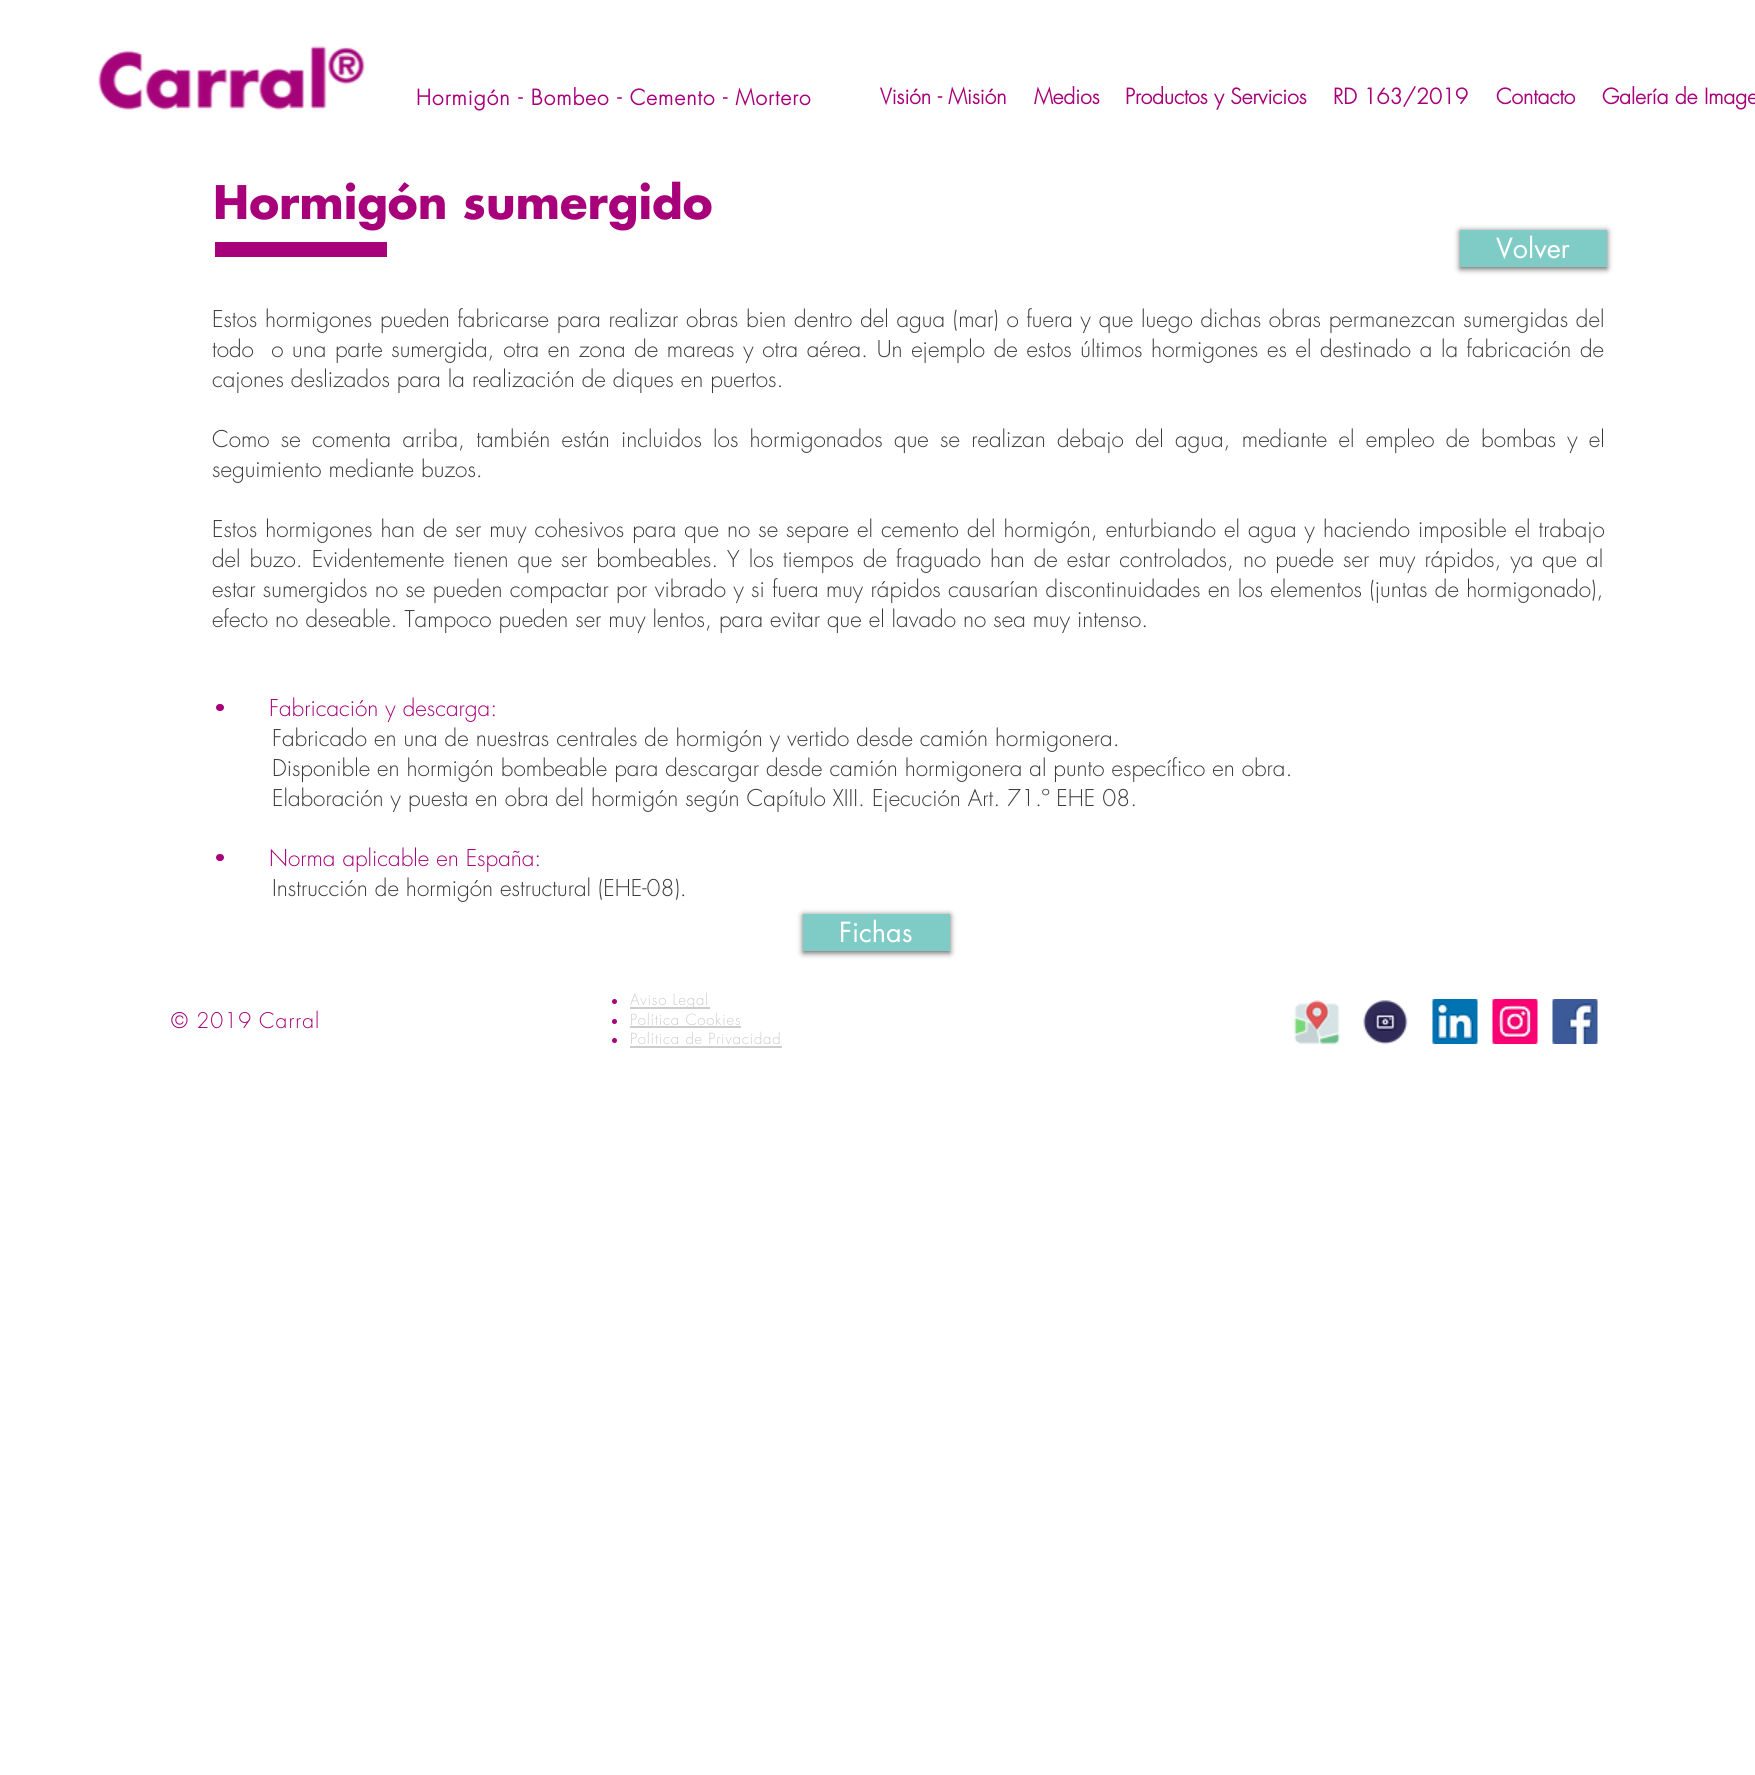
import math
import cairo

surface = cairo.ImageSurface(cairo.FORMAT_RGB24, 1755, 1775)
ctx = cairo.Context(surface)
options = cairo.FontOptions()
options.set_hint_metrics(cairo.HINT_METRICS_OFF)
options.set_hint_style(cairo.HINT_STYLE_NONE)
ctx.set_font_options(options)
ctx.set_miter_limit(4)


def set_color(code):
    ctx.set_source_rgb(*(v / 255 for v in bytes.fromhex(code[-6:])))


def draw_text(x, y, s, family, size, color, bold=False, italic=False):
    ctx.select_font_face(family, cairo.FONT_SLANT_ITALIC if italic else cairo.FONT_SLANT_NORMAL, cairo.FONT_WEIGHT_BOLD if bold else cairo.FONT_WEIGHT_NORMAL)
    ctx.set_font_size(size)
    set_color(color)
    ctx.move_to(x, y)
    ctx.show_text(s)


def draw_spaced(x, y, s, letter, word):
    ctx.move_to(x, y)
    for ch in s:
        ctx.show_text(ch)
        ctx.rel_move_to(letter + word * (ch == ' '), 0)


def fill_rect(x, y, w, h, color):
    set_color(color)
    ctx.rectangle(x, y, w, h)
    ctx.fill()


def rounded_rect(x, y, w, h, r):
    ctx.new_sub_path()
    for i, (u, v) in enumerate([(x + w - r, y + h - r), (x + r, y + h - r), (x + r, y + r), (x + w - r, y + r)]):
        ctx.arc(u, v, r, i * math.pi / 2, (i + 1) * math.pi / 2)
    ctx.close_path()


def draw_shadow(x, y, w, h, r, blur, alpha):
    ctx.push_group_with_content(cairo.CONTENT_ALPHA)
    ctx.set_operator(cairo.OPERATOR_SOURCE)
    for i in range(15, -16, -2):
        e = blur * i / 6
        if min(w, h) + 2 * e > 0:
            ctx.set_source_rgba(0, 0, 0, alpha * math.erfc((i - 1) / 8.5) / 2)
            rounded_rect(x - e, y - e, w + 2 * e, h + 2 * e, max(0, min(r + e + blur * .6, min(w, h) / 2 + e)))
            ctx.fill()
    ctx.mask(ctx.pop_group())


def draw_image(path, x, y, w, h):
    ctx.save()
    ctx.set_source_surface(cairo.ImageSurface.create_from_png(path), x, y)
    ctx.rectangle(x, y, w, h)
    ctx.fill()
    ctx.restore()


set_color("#ffffff")
ctx.paint()
draw_image("assets/img1.png", 98, 46, 267, 66)
ctx.select_font_face("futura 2", cairo.FONT_SLANT_NORMAL, cairo.FONT_WEIGHT_BOLD)
ctx.set_font_size(21)
set_color("#a8007a")
draw_spaced(416, 105, "Hormigón - Bombeo - Cemento - Mortero", 1.05, 0)
draw_text(880, 104, "Visión - Misión", "futura 2", 21, "#a8007a", bold=True)
draw_text(1034, 104, "Medios", "futura 2", 21, "#a8007a", bold=True)
draw_text(1125, 104, "Productos y Servicios", "futura 2", 21, "#a8007a", bold=True)
draw_text(1333, 104, "RD 163/2019", "futura 2", 21, "#a8007a", bold=True)
draw_text(1496, 104, "Contacto", "futura 2", 21, "#a8007a", bold=True)
draw_text(1602, 104, "Galería de Image", "futura 2", 21, "#a8007a", bold=True)
draw_text(213, 219, "Hormigón sumergido", "Futura", 45, "#a8007a", bold=True)
fill_rect(215, 242, 172, 15, "#a8007a")
set_color("#000000")
draw_shadow(1460, 231, 147, 38, 0, 3, 0.6)
fill_rect(1460, 230, 147, 37, "#7fccc6")
draw_text(1496, 258, "Volver", "futura", 27, "#ffffff")
ctx.select_font_face("futura Light")
ctx.set_font_size(22.5)
set_color("#3b3a3a")
draw_spaced(212, 327, "Estos hormigones pueden fabricarse para realizar obras bien dentro del agua (mar) o fuera y que luego dichas obras permanezcan sumergidas del", 0, 0.75)
draw_spaced(212, 357, "todo  o una parte sumergida, otra en zona de mareas y otra aérea. Un ejemplo de estos últimos hormigones es el destinado a la fabricación de", 0, 1.65)
draw_text(212, 387, "cajones deslizados para la realización de diques en puertos.", "futura Light", 22.5, "#3b3a3a")
draw_spaced(212, 447, "Como se comenta arriba, también están incluidos los hormigonados que se realizan debajo del agua, mediante el empleo de bombas y el", 0, 4.3)
draw_text(212, 477, "seguimiento mediante buzos.", "futura Light", 22.5, "#3b3a3a")
draw_spaced(212, 537, "Estos hormigones han de ser muy cohesivos para que no se separe el cemento del hormigón, enturbiando el agua y haciendo imposible el trabajo", 0, 1)
draw_spaced(212, 567, "del buzo. Evidentemente tienen que ser bombeables. Y los tiempos de fraguado han de estar controlados, no puede ser muy rápidos, ya que al", 0, 2)
draw_spaced(212, 597, "estar sumergidos no se pueden compactar por vibrado y si fuera muy rápidos causarían discontinuidades en los elementos (juntas de hormigonado),", 0, 0.4)
draw_text(212, 627, "efecto no deseable. Tampoco pueden ser muy lentos, para evitar que el lavado no sea muy intenso.", "futura Light", 22.5, "#3b3a3a")
set_color("#a8007a")
rounded_rect(216, 704, 8, 7, 3.5)
ctx.fill()
draw_text(269, 716, "Fabricación y descarga:", "futura Light", 22.5, "#a8007a")
draw_text(272, 746, "Fabricado en una de nuestras centrales de hormigón y vertido desde camión hormigonera.", "futura Light", 22.5, "#3b3a3a")
draw_text(272, 776, "Disponible en hormigón bombeable para descargar desde camión hormigonera al punto específico en obra.", "futura Light", 22.5, "#3b3a3a")
draw_text(272, 806, "Elaboración y puesta en obra del hormigón según Capítulo XIII. Ejecución Art. 71.º EHE 08.", "futura Light", 22.5, "#3b3a3a")
set_color("#a8007a")
rounded_rect(216, 854, 8, 7, 3.5)
ctx.fill()
draw_text(269, 866, "Norma aplicable en España:", "futura Light", 22.5, "#a8007a")
draw_text(272, 896, "Instrucción de hormigón estructural (EHE-08).", "futura Light", 22.5, "#3b3a3a")
set_color("#000000")
draw_shadow(803, 915, 147, 38, 0, 3, 0.6)
fill_rect(803, 914, 147, 37, "#7fccc6")
draw_text(839, 942, "Fichas", "futura", 27, "#ffffff")
ctx.select_font_face("futura Light")
ctx.set_font_size(21)
set_color("#a8007a")
draw_spaced(171, 1028, "© 2019", 1, 0)
draw_spaced(259, 1028, "Carral", 1.05, 0)
ctx.new_path()
ctx.arc(614.5, 1001.5, 2.5, 0, 2 * math.pi)
ctx.fill()
fill_rect(630, 1007, 80, 2, "#cccccc")
ctx.set_font_size(15)
draw_spaced(630, 1005, "Aviso Legal", 0.75, 0)
set_color("#a8007a")
ctx.new_path()
ctx.arc(614.5, 1021.5, 2.5, 0, 2 * math.pi)
ctx.fill()
set_color("#cccccc")
draw_spaced(630, 1025, "Política Cookies", 0.75, 0)
fill_rect(630, 1026, 111, 2, "#cccccc")
set_color("#a8007a")
ctx.new_path()
ctx.arc(614.5, 1040.5, 2.5, 0, 2 * math.pi)
ctx.fill()
set_color("#cccccc")
draw_spaced(630, 1044, "Política de Privacidad", 0.75, 0)
fill_rect(630, 1046, 152, 2, "#cccccc")
draw_image("assets/img2.png", 1294, 1000, 46, 45)
draw_image("assets/img3.png", 1363, 1000, 45, 45)
draw_image("assets/img4.png", 1432, 999, 46, 45)
draw_image("assets/img5.png", 1492, 999, 46, 45)
draw_image("assets/img6.png", 1552, 999, 46, 45)
surface.write_to_png("output.png")
